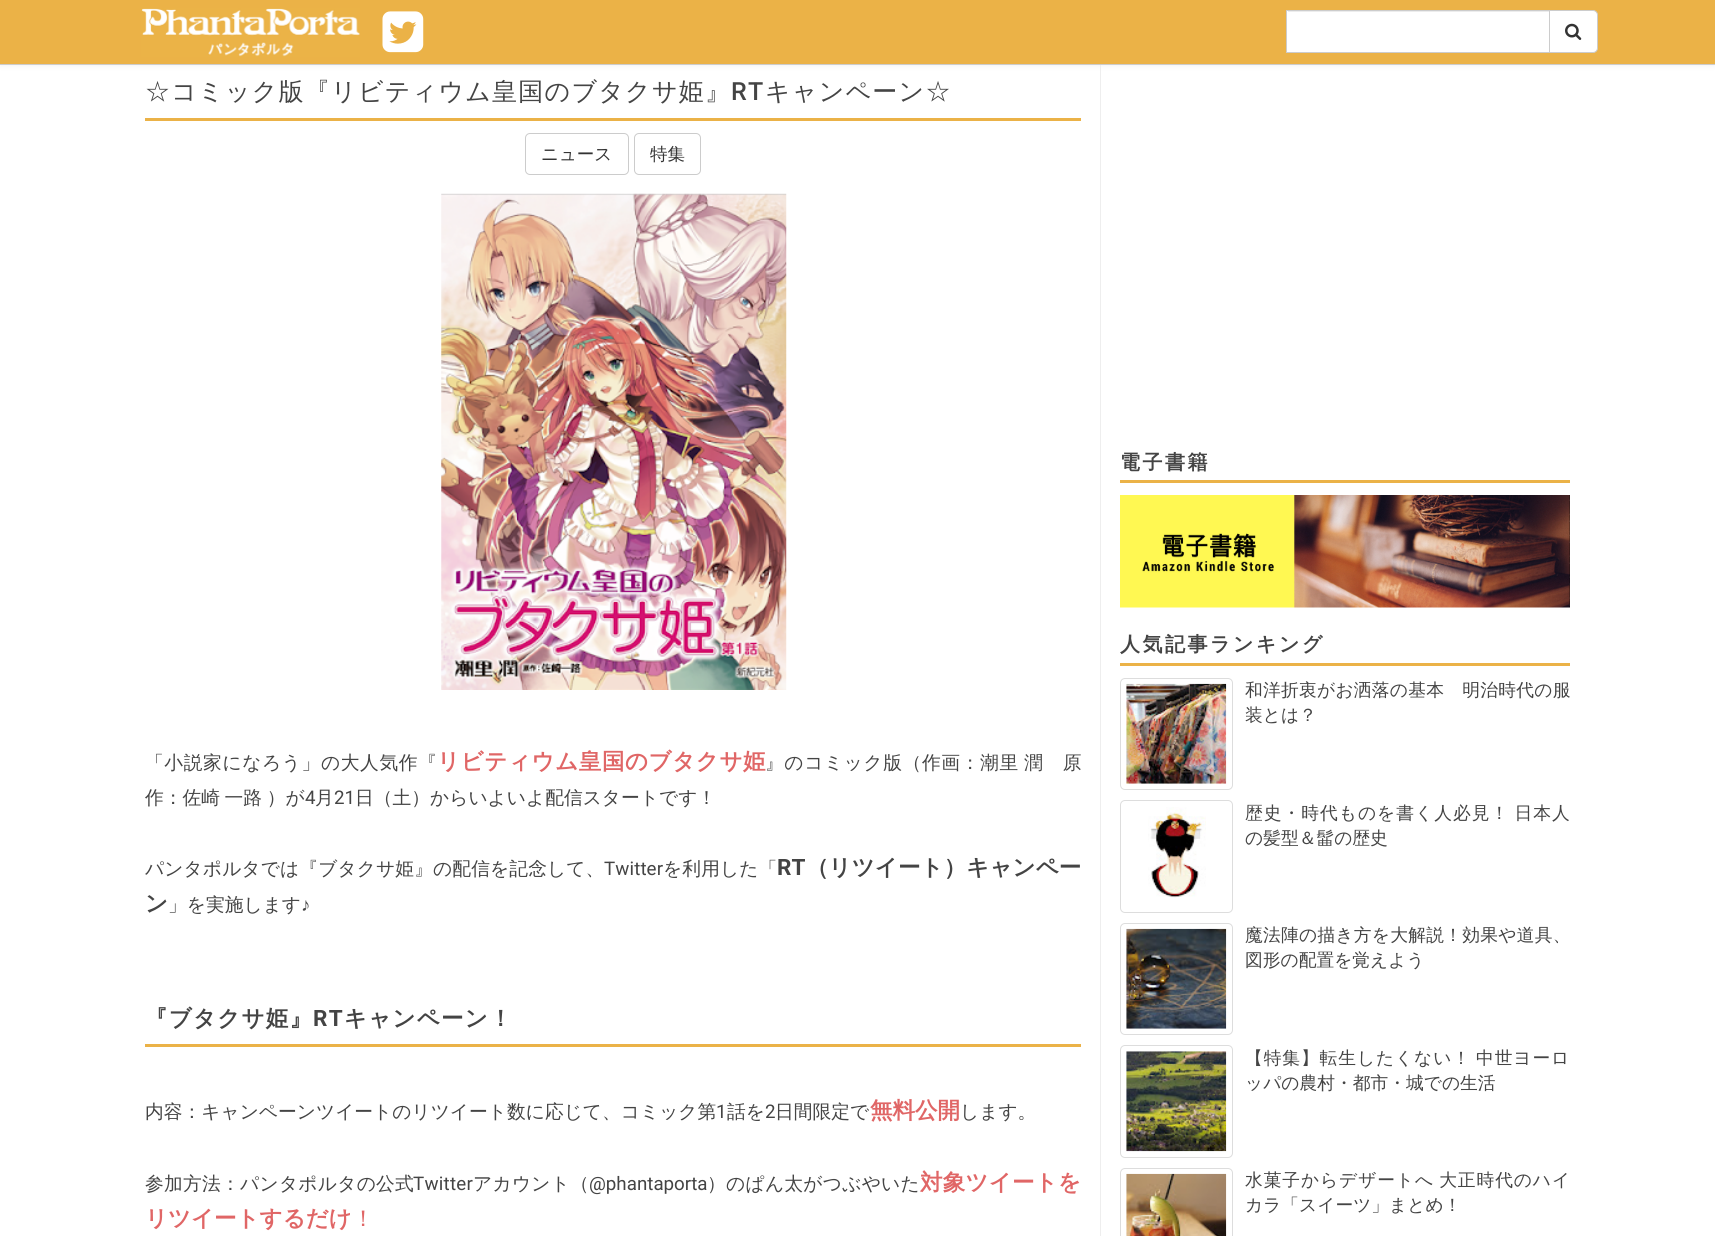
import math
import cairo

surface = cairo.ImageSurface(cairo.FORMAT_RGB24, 1715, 1236)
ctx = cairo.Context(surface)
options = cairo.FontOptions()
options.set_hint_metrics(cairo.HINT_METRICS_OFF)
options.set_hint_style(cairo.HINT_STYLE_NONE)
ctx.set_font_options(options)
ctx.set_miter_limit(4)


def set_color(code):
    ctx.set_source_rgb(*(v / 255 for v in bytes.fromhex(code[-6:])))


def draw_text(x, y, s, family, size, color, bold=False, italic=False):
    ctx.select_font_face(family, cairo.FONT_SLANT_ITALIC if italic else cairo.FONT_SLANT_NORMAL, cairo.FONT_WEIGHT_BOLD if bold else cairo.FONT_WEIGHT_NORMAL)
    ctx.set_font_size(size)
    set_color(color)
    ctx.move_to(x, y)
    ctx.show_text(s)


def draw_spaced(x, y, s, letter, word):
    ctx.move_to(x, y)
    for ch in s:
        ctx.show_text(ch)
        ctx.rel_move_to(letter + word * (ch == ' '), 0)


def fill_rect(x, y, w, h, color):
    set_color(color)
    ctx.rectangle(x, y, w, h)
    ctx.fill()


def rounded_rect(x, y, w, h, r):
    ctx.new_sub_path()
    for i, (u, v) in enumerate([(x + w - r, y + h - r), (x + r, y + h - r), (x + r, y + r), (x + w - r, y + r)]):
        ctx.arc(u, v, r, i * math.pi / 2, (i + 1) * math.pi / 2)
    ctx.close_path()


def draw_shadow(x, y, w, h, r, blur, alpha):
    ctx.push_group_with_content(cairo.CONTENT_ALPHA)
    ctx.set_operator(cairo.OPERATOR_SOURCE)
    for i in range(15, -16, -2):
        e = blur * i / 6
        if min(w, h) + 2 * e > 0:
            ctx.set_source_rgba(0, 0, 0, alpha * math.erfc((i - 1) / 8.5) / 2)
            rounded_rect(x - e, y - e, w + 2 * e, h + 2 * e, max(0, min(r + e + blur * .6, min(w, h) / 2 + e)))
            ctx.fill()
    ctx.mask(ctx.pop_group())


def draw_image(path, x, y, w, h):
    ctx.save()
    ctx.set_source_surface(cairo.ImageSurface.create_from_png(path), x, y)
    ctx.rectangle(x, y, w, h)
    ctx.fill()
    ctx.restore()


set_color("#ffffff")
ctx.paint()
fill_rect(1100, 64, 1, 1172, "#eeeeee")
set_color("#efefef")
draw_shadow(0, 0, 1715, 65, 0, 3, 1)
fill_rect(0, 0, 1715, 64, "#ebb247")
fill_rect(0, 64, 1715, 1, "#cccccc")
draw_image("assets/img1.png", 141, 8, 219, 49)
draw_image("assets/img2.png", 382, 11, 42, 42)
fill_rect(1287, 11, 262, 41, "#ffffff")
fill_rect(1288, 11, 261, 1, "#ececec")
ctx.rectangle(1286.5, 10.5, 263, 42)
set_color("#cccccc")
ctx.set_line_width(1)
ctx.stroke()
set_color("#ffffff")
ctx.new_path()
ctx.move_to(1549.5, 10.5)
ctx.line_to(1593, 10.5)
ctx.curve_to(1595.5, 10.5, 1597.5, 12.5, 1597.5, 15)
ctx.line_to(1597.5, 48)
ctx.curve_to(1597.5, 50.5, 1595.5, 52.5, 1593, 52.5)
ctx.line_to(1549.5, 52.5)
ctx.close_path()
ctx.fill_preserve()
set_color("#cccccc")
ctx.stroke()
draw_image("assets/img3.png", 1565, 23, 17, 17)
fill_rect(145, 118, 936, 3, "#ebb247")
ctx.select_font_face("WenQuanYi Zen Hei Medium")
ctx.set_font_size(25)
set_color("#444444")
draw_spaced(145, 100, "☆コミック版『リビティウム皇国のブタクサ姫』", 1.25, 0)
ctx.select_font_face("Roboto Medium")
draw_spaced(731, 100, "RT", 1.25, 0)
ctx.select_font_face("WenQuanYi Zen Hei Medium")
draw_spaced(765, 100, "キャンペーン☆", 1.25, 0)
rounded_rect(525.5, 133.5, 103, 41, 4.5)
set_color("#cccccc")
ctx.stroke()
draw_text(541, 160, "ニュース", "WenQuanYi Zen Hei Medium", 17.5, "#333333")
rounded_rect(634.5, 133.5, 66, 41, 4.5)
set_color("#cccccc")
ctx.stroke()
draw_text(650, 160, "特集", "WenQuanYi Zen Hei Medium", 17.5, "#333333")
draw_image("assets/img4.png", 441, 193, 346, 497)
ctx.set_font_size(18.75)
set_color("#444444")
draw_spaced(145, 769, "「小説家になろう」の大人気作『", 0.6, 0)
ctx.select_font_face("WenQuanYi Zen Hei", cairo.FONT_SLANT_NORMAL, cairo.FONT_WEIGHT_BOLD)
ctx.set_font_size(22.5)
set_color("#e06666")
draw_spaced(437, 769, "リビティウム皇国のブタクサ姫", 0.6, 0)
ctx.select_font_face("WenQuanYi Zen Hei Medium")
ctx.set_font_size(18.75)
set_color("#444444")
draw_spaced(765, 769, "』のコミック版（作画：潮里 潤　原", 0.6, -1)
draw_spaced(145, 804, "作：佐崎 一路 ）が", 0, -1)
draw_text(305, 804, "4", "Roboto", 18.75, "#444444")
draw_text(315, 804, "月", "WenQuanYi Zen Hei Medium", 18.75, "#444444")
draw_text(334, 804, "21", "Roboto", 18.75, "#444444")
draw_text(355, 804, "日（土）からいよいよ配信スタートです！", "WenQuanYi Zen Hei Medium", 18.75, "#444444")
draw_spaced(145, 875, "パンタポルタでは『ブタクサ姫』の配信を記念して、", 0.1, 0)
ctx.select_font_face("Roboto")
draw_spaced(604, 875, "Twitter", 0.1, 0)
ctx.select_font_face("WenQuanYi Zen Hei Medium")
draw_spaced(663, 875, "を利用した「", 0.1, 0)
ctx.select_font_face("Roboto", cairo.FONT_SLANT_NORMAL, cairo.FONT_WEIGHT_BOLD)
ctx.set_font_size(22.5)
draw_spaced(777, 875, "RT", 0.1, 0)
ctx.select_font_face("WenQuanYi Zen Hei", cairo.FONT_SLANT_NORMAL, cairo.FONT_WEIGHT_BOLD)
draw_spaced(806, 875, "（リツイート）キャンペー", 0.1, 0)
draw_text(145, 911, "ン", "WenQuanYi Zen Hei", 22.5, "#444444", bold=True)
draw_text(168, 911, "」を実施します", "WenQuanYi Zen Hei Medium", 18.75, "#444444")
draw_text(301, 911, "♪", "Liberation Sans", 18.75, "#444444")
fill_rect(145, 1044, 936, 3, "#ebb247")
ctx.select_font_face("WenQuanYi Zen Hei", cairo.FONT_SLANT_NORMAL, cairo.FONT_WEIGHT_BOLD)
ctx.set_font_size(22.5)
set_color("#444444")
draw_spaced(145, 1026, "『ブタクサ姫』", 1.25, 0)
ctx.select_font_face("Roboto", cairo.FONT_SLANT_NORMAL, cairo.FONT_WEIGHT_BOLD)
draw_spaced(313, 1026, "RT", 1.25, 0)
ctx.select_font_face("WenQuanYi Zen Hei", cairo.FONT_SLANT_NORMAL, cairo.FONT_WEIGHT_BOLD)
draw_spaced(344, 1026, "キャンペーン！", 1.25, 0)
draw_text(145, 1118, "内容：キャンペーンツイートのリツイート数に応じて、コミック第", "WenQuanYi Zen Hei Medium", 18.75, "#444444")
draw_text(716, 1118, "1", "Roboto", 18.75, "#444444")
draw_text(727, 1118, "話を", "WenQuanYi Zen Hei Medium", 18.75, "#444444")
draw_text(765, 1118, "2", "Roboto", 18.75, "#444444")
draw_text(775, 1118, "日間限定で", "WenQuanYi Zen Hei Medium", 18.75, "#444444")
draw_text(870, 1118, "無料公開", "WenQuanYi Zen Hei", 22.5, "#e06666", bold=True)
draw_text(960, 1118, "します。", "WenQuanYi Zen Hei Medium", 18.75, "#444444")
draw_spaced(145, 1190, "参加方法：パンタポルタの公式", 0.25, 0)
ctx.select_font_face("Roboto")
draw_spaced(413, 1190, "Twitter", 0.25, 0)
ctx.select_font_face("WenQuanYi Zen Hei Medium")
draw_spaced(473, 1190, "アカウント（", 0.25, 0)
draw_text(589, 1190, "@phantaporta", "Roboto", 18.75, "#444444")
ctx.select_font_face("WenQuanYi Zen Hei Medium")
draw_spaced(707, 1190, "）のぱん太がつぶやいた", 0.25, 0)
ctx.select_font_face("WenQuanYi Zen Hei", cairo.FONT_SLANT_NORMAL, cairo.FONT_WEIGHT_BOLD)
ctx.set_font_size(22.5)
set_color("#e06666")
draw_spaced(920, 1190, "対象ツイートを", 0.25, 0)
draw_text(145, 1226, "リツイートするだけ", "WenQuanYi Zen Hei", 22.5, "#e06666", bold=True)
draw_text(352, 1226, "！", "WenQuanYi Zen Hei Medium", 22.5, "#e06666")
fill_rect(1120, 480, 450, 3, "#ebb247")
ctx.select_font_face("WenQuanYi Zen Hei", cairo.FONT_SLANT_NORMAL, cairo.FONT_WEIGHT_BOLD)
ctx.set_font_size(20)
set_color("#444444")
draw_spaced(1120, 469, "電子書籍", 2.5, 0)
draw_image("assets/img5.png", 1120, 495, 450, 113)
fill_rect(1120, 663, 450, 3, "#ebb247")
set_color("#444444")
draw_spaced(1120, 651, "人気記事ランキング", 2.5, 0)
rounded_rect(1120.5, 678.5, 112, 111, 4.5)
set_color("#dddddd")
ctx.stroke()
draw_image("assets/img6.png", 1126, 683, 101, 101)
ctx.select_font_face("WenQuanYi Zen Hei Medium")
ctx.set_font_size(17.75)
set_color("#444444")
draw_spaced(1245, 696, "和洋折衷がお洒落の基本　明治時代の服", 0.25, 0)
draw_text(1245, 721, "装とは？", "WenQuanYi Zen Hei Medium", 17.75, "#444444")
rounded_rect(1120.5, 800.5, 112, 112, 4.5)
set_color("#dddddd")
ctx.stroke()
draw_image("assets/img7.png", 1148, 807, 58, 91)
set_color("#444444")
draw_spaced(1245, 819, "歴史・時代ものを書く人必見！ 日本人", 1, -1)
draw_text(1245, 844, "の髪型＆髷の歴史", "WenQuanYi Zen Hei Medium", 17.75, "#444444")
rounded_rect(1120.5, 923.5, 112, 111, 4.5)
set_color("#dddddd")
ctx.stroke()
draw_image("assets/img8.png", 1126, 928, 101, 101)
set_color("#444444")
draw_spaced(1245, 941, "魔法陣の描き方を大解説！効果や道具、", 0.25, 0)
draw_text(1245, 966, "図形の配置を覚えよう", "WenQuanYi Zen Hei Medium", 17.75, "#444444")
rounded_rect(1120.5, 1045.5, 112, 112, 4.5)
set_color("#dddddd")
ctx.stroke()
draw_image("assets/img9.png", 1126, 1051, 101, 101)
set_color("#444444")
draw_spaced(1245, 1064, "【特集】転生したくない！ 中世ヨーロ", 0.9, -1)
draw_text(1245, 1089, "ッパの農村・都市・城での生活", "WenQuanYi Zen Hei Medium", 17.75, "#444444")
rounded_rect(1120.5, 1168.5, 112, 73, 4.5)
set_color("#dddddd")
ctx.stroke()
draw_image("assets/img10.png", 1126, 1173, 101, 63)
set_color("#444444")
draw_spaced(1245, 1186, "水菓子からデザートへ 大正時代のハイ", 0.9, -1)
draw_text(1245, 1211, "カラ「スイーツ」まとめ！", "WenQuanYi Zen Hei Medium", 17.75, "#444444")
surface.write_to_png("output.png")
